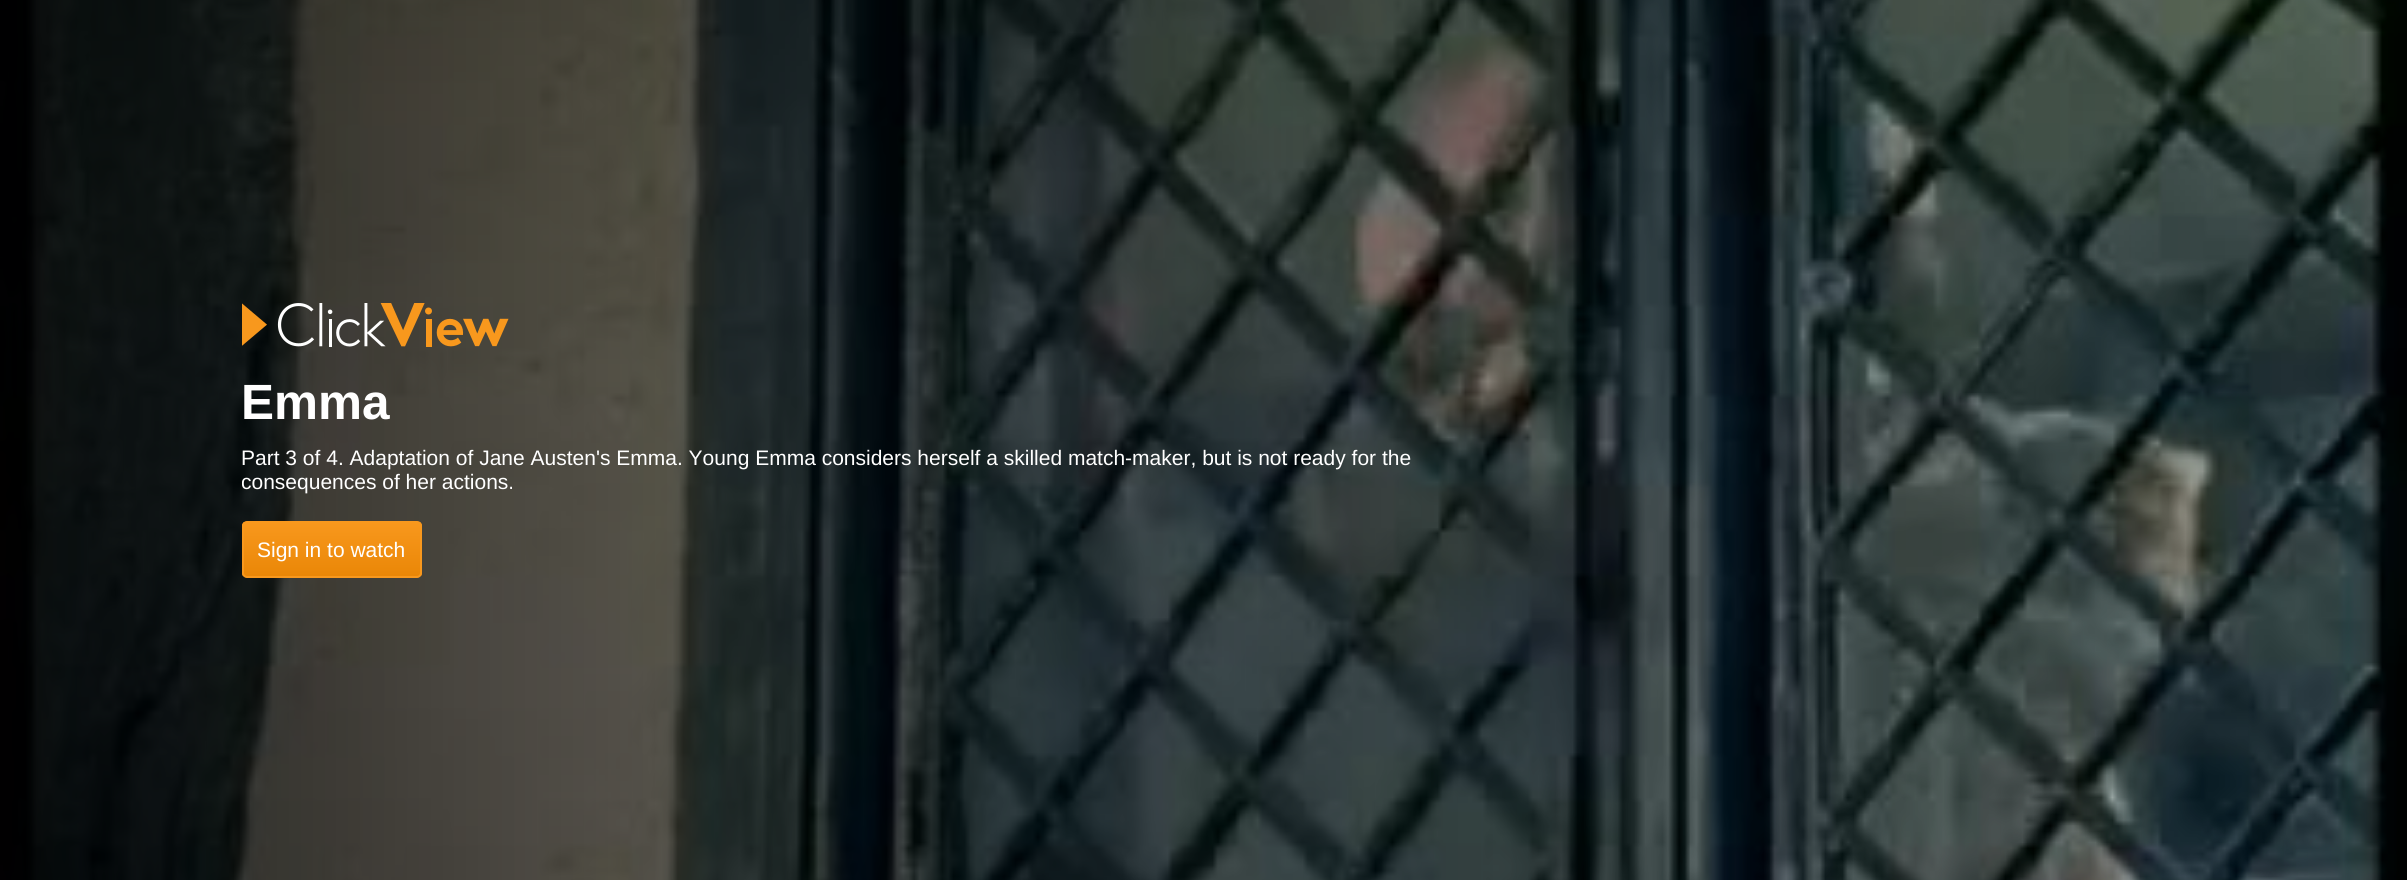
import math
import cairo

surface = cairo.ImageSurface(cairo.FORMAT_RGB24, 2407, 880)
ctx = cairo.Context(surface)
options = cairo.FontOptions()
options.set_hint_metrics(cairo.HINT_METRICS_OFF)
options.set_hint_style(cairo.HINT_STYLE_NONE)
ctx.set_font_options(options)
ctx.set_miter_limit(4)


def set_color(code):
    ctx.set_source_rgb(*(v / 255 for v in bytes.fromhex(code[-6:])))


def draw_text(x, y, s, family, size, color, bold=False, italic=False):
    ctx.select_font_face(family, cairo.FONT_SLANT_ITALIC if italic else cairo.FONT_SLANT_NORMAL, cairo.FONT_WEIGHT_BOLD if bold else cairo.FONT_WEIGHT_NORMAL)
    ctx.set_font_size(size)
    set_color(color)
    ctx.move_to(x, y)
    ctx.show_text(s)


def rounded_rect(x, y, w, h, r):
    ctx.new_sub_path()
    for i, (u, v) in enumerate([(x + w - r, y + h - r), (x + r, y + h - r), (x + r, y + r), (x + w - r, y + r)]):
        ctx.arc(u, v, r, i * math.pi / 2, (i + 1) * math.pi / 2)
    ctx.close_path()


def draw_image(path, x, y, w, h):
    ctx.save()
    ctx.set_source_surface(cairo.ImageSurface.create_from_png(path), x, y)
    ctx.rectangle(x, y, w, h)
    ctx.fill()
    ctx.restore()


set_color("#ffffff")
ctx.paint()
draw_image("assets/img1.png", 0, 0, 2407, 880)
draw_image("assets/img2.png", 242, 303, 267, 44)
draw_text(241, 419, "Emma", "Liberation Sans", 49.5, "#ffffff", bold=True)
draw_text(241, 465, "Part 3 of 4. Adaptation of Jane Austen's Emma. Young Emma considers herself a skilled match-maker, but is not ready for the", "Liberation Sans", 21, "#ffffff")
ctx.save()
ctx.rectangle(242, 446, 1203, 48)
ctx.clip()
draw_text(241, 489, "consequences of her actions.", "Liberation Sans", 21, "#ffffff")
ctx.restore()
ctx.save()
rounded_rect(242, 521, 180, 57, 5)
ctx.clip()
gradient = cairo.LinearGradient(332, 522, 332, 576)
gradient.add_color_stop_rgba(0, 0.973, 0.596, 0.114, 1)
gradient.add_color_stop_rgba(1, 0.918, 0.529, 0.027, 1)
ctx.set_source(gradient)
ctx.rectangle(242, 522, 180, 54)
ctx.fill()
ctx.restore()
rounded_rect(243, 522, 178, 55, 4)
set_color("#f8981d")
ctx.stroke()
draw_text(257, 557, "Sign in to watch", "Liberation Sans", 21, "#ffffff")
surface.write_to_png("output.png")
